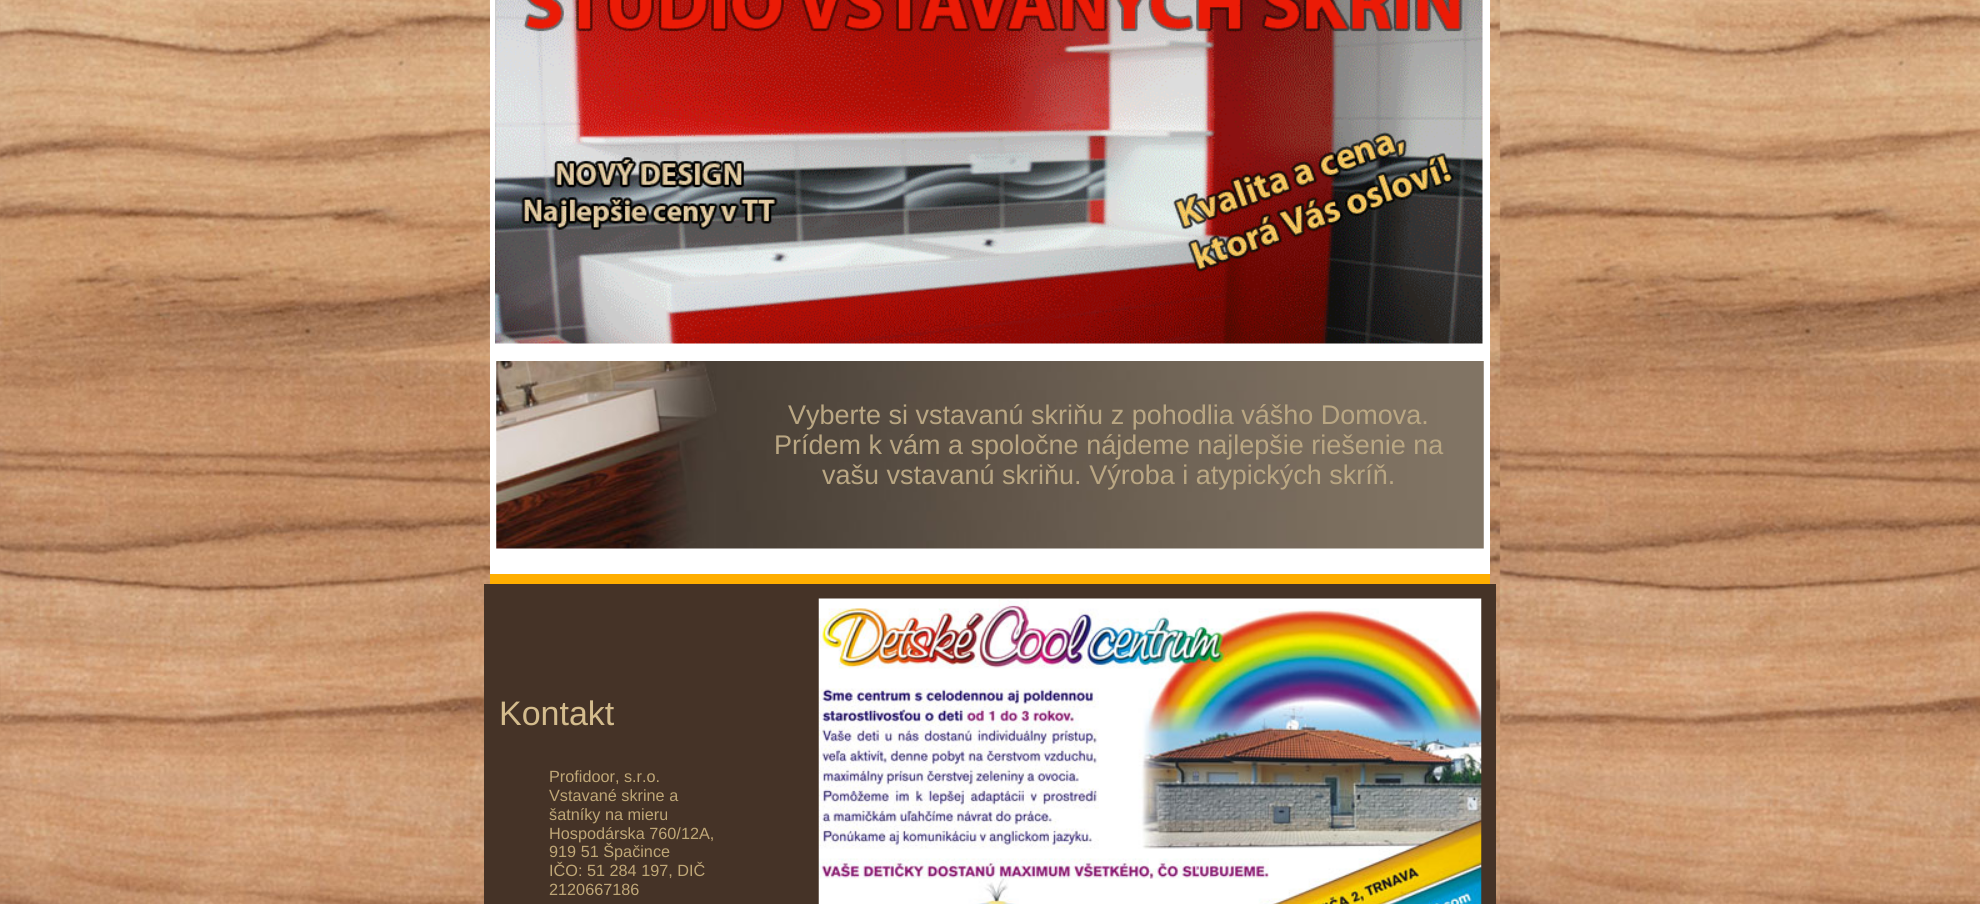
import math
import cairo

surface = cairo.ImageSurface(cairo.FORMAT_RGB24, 1980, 904)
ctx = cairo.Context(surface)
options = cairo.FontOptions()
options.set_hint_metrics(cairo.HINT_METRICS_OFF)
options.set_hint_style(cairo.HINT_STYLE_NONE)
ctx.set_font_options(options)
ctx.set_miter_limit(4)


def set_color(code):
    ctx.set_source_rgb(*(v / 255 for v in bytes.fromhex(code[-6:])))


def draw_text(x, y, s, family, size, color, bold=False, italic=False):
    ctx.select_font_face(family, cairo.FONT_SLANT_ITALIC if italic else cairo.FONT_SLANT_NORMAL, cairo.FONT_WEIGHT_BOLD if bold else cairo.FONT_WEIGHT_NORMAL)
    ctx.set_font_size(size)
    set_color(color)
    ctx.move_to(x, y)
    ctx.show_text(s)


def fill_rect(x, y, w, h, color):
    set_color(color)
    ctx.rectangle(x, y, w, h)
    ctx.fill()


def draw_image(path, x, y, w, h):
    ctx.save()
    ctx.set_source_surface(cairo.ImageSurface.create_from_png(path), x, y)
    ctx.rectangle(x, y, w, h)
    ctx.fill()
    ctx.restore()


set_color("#ffffff")
ctx.paint()
draw_image("assets/img1.png", 0, 0, 1980, 904)
fill_rect(490, 0, 1000, 574, "#ffffff")
draw_image("assets/img2.png", 495, 0, 988, 344)
draw_image("assets/img3.png", 496, 361, 988, 188)
draw_text(788, 424, "Vyberte si vstavanú skriňu z pohodlia vášho Domova.", "Liberation Sans", 27, "#baa783")
draw_text(774, 454, "Prídem k vám a spoločne nájdeme najlepšie riešenie na", "Liberation Sans", 27, "#baa783")
draw_text(822, 484, "vašu vstavanú skriňu. Výroba i atypických skríň.", "Liberation Sans", 27, "#baa783")
fill_rect(490, 574, 1000, 10, "#ffae00")
fill_rect(484, 584, 1012, 320, "#453327")
draw_text(499, 725, "Kontakt", "Liberation Sans", 34, "#d4bc8d")
draw_text(549, 782, "Profidoor, s.r.o.", "Liberation Sans", 16.25, "#bfa777")
draw_text(549, 801, "Vstavané skrine a", "Liberation Sans", 16.25, "#bfa777")
draw_text(549, 820, "šatníky na mieru", "Liberation Sans", 16.25, "#bfa777")
draw_text(549, 839, "Hospodárska 760/12A,", "Liberation Sans", 16.25, "#bfa777")
draw_text(549, 857, "919 51 Špačince", "Liberation Sans", 16.25, "#bfa777")
draw_text(549, 876, "IČO: 51 284 197, DIČ", "Liberation Sans", 16.25, "#bfa777")
draw_text(549, 895, "2120667186", "Liberation Sans", 16.25, "#bfa777")
draw_image("assets/img4.png", 818, 598, 664, 306)
surface.write_to_png("output.png")
